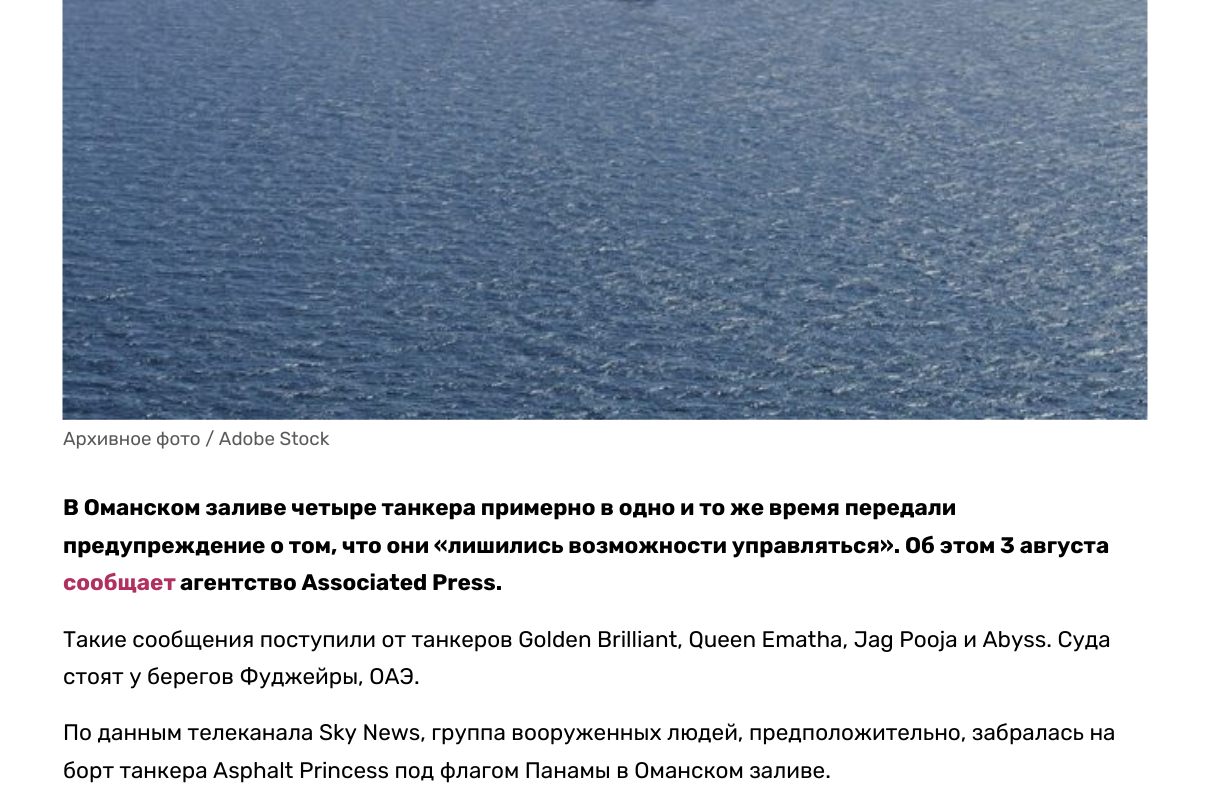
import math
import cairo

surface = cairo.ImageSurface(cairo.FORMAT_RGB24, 1209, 801)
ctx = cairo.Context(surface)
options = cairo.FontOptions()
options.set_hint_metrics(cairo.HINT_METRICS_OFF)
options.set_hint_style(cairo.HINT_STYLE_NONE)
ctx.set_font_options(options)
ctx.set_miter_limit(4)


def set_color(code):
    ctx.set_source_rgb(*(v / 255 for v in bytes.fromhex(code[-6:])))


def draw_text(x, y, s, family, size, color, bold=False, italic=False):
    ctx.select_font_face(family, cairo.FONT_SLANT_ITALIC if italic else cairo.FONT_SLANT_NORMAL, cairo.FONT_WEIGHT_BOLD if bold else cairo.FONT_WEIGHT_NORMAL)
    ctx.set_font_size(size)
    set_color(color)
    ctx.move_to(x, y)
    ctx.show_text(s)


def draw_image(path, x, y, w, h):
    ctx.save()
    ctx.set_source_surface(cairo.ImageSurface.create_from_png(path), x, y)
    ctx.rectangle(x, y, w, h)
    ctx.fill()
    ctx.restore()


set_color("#ffffff")
ctx.paint()
draw_image("assets/img1.png", 62, 0, 1086, 420)
draw_text(63, 445, "Архивное фото / Adobe Stock", "Rubik", 18.75, "#5a5a5a")
draw_text(63, 515, "В Оманском заливе четыре танкера примерно в одно и то же время передали", "Rubik", 22.5, "#000000", bold=True)
draw_text(63, 553, "предупреждение о том, что они «лишились возможности управляться». Об этом 3 августа", "Rubik", 22.5, "#000000", bold=True)
draw_text(63, 590, "сообщает", "Rubik", 22.5, "#b03060", bold=True)
draw_text(180, 590, "агентство Associated Press.", "Rubik", 22.5, "#000000", bold=True)
draw_text(63, 647, "Такие сообщения поступили от танкеров Golden Brilliant, Queen Ematha, Jag Pooja и Abyss. Суда", "Rubik", 22.5, "#000000")
draw_text(63, 684, "стоят у берегов Фуджейры, ОАЭ.", "Rubik", 22.5, "#000000")
draw_text(63, 740, "По данным телеканала Sky News, группа вооруженных людей, предположительно, забралась на", "Rubik", 22.5, "#000000")
draw_text(63, 778, "борт танкера Asphalt Princess под флагом Панамы в Оманском заливе.", "Rubik", 22.5, "#000000")
surface.write_to_png("output.png")
